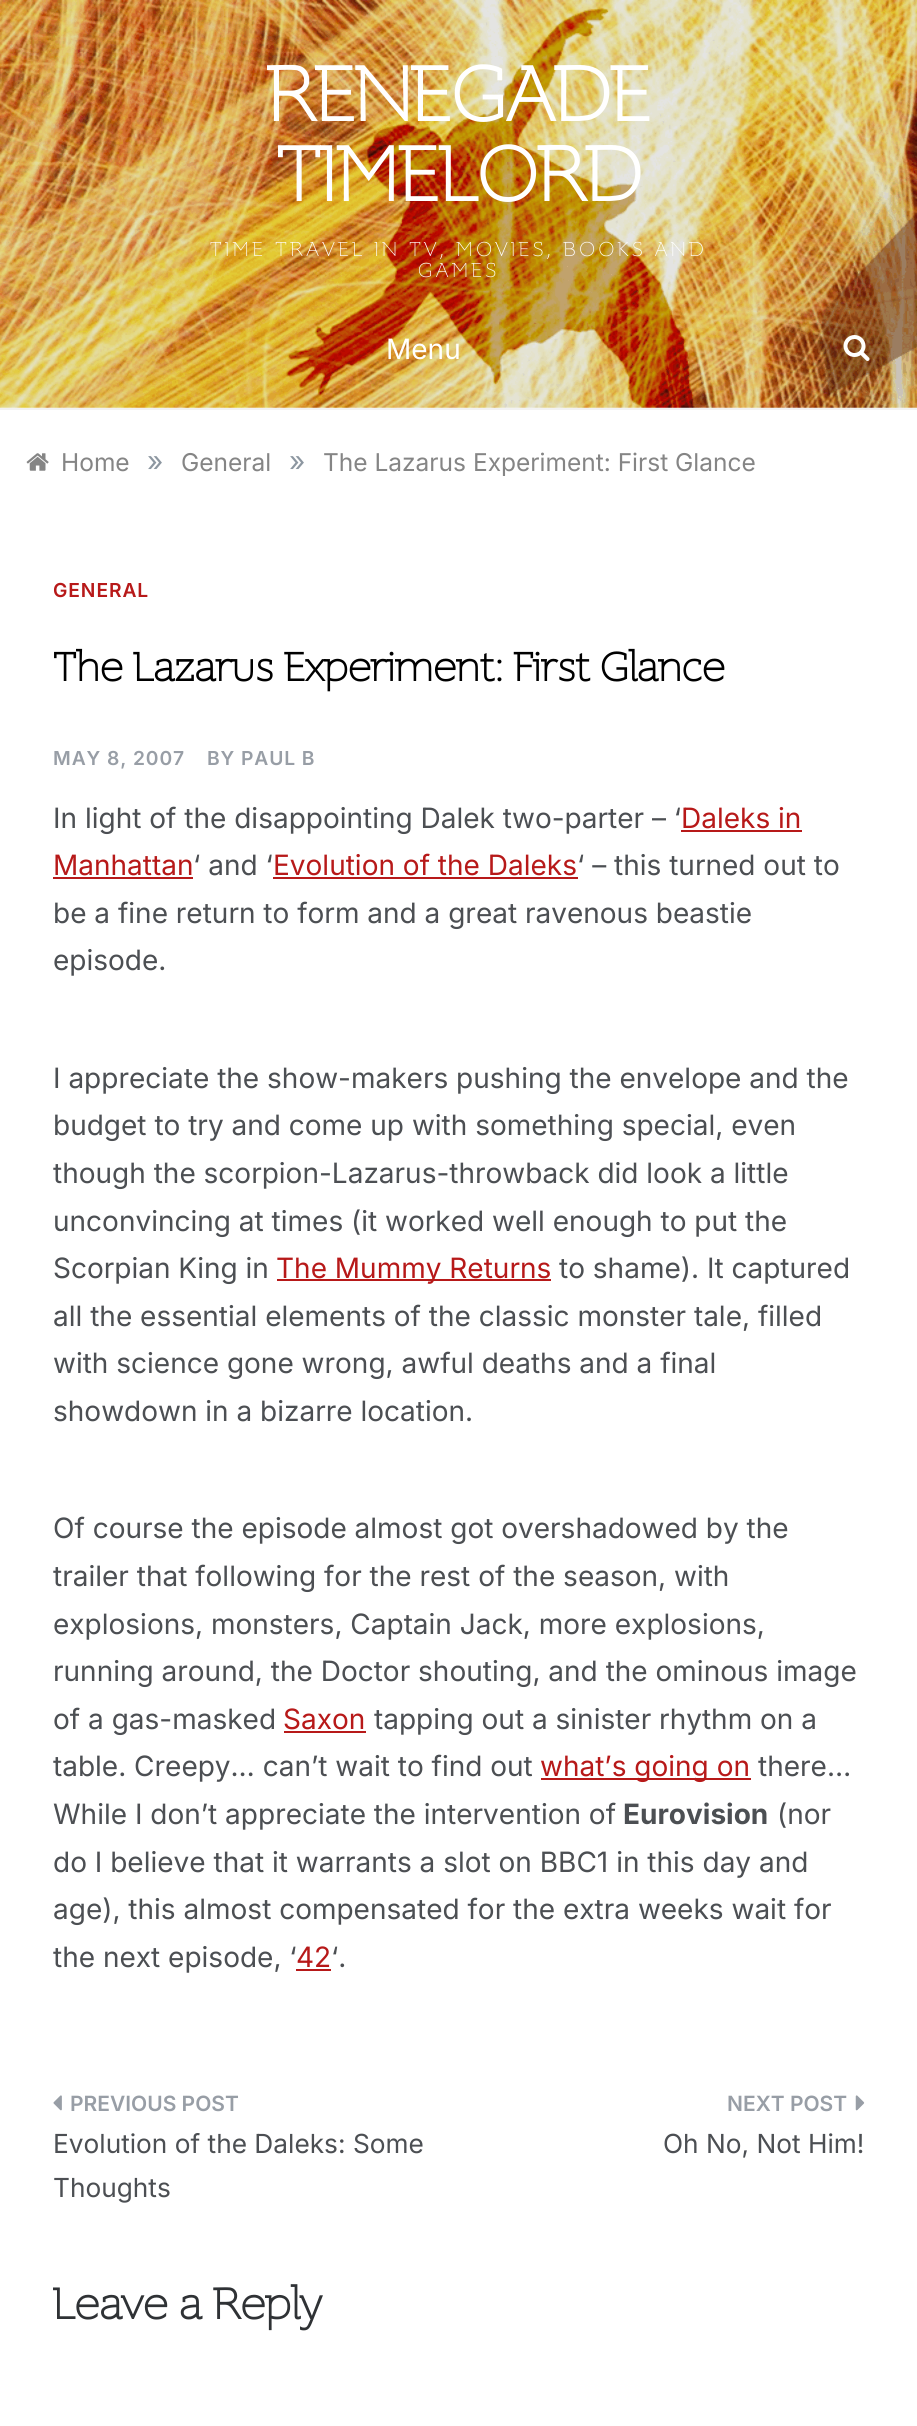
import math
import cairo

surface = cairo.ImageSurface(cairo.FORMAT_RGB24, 917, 2426)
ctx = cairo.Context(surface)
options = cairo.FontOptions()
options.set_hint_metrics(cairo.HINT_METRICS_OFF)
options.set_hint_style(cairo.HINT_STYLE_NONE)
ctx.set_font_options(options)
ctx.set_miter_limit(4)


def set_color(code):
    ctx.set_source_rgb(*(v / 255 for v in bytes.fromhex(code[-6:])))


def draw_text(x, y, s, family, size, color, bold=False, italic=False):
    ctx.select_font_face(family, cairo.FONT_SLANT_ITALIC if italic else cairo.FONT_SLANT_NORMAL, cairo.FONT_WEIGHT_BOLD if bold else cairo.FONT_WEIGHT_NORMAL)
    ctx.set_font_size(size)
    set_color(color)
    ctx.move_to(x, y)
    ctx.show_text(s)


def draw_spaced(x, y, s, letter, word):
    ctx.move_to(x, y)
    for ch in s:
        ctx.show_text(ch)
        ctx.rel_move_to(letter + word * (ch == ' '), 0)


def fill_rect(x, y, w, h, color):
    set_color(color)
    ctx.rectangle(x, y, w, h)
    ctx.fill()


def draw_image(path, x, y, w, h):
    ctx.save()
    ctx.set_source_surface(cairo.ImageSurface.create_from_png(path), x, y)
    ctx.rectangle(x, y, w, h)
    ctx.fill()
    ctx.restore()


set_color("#ffffff")
ctx.paint()
draw_image("assets/img1.png", 0, 0, 917, 408)
fill_rect(0, 408, 917, 2, "#f2f2f2")
draw_text(267, 121, "RENEGADE", "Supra", 80.5, "#ffffff", bold=True)
draw_text(276, 201, "TIMELORD", "Supra", 80.5, "#ffffff", bold=True)
ctx.select_font_face("Supra Thin")
ctx.set_font_size(21)
draw_spaced(210, 256, "TIME TRAVEL IN TV, MOVIES, BOOKS AND", 3.5, 0)
draw_spaced(418, 277, "GAMES", 3.5, 0)
draw_text(386, 359, "Menu", "Inter", 28, "#ffffff")
draw_image("assets/img2.png", 843, 335, 27, 26)
draw_image("assets/img3.png", 26, 453, 23, 18)
draw_text(61, 471, "Home", "Inter", 24.5, "#858585")
draw_text(147, 471, "»", "Inter", 28, "#8d97a1")
draw_text(181, 471, "General", "Inter", 24.5, "#858585")
draw_text(289, 471, "»", "Inter", 28, "#8d97a1")
draw_text(323, 471, "The Lazarus Experiment: First Glance", "Inter", 24.5, "#858585")
ctx.select_font_face("Inter SemiBold")
ctx.set_font_size(19.25)
set_color("#b71919")
draw_spaced(53, 597, "GENERAL", 0.9, 0)
draw_text(53, 681, "The Lazarus Experiment: First Glance", "Supra", 42, "#000000", bold=True)
ctx.select_font_face("Inter SemiBold")
ctx.set_font_size(19.25)
set_color("#989ea6")
draw_spaced(53, 765, "MAY 8, 2007", 0.9, 0)
draw_spaced(207, 765, "BY PAUL B", 0.9, 0)
draw_text(53, 828, "In light of the disappointing Dalek two-parter – ‘", "Inter", 28, "#4c4f53")
draw_text(681, 828, "Daleks in", "Inter", 28, "#b71919")
fill_rect(681, 830, 121, 2, "#b71919")
draw_text(53, 875, "Manhattan", "Inter", 28, "#b71919")
fill_rect(53, 877, 140, 2, "#b71919")
draw_text(193, 875, "‘ and ‘", "Inter", 28, "#4c4f53")
draw_text(273, 875, "Evolution of the Daleks", "Inter", 28, "#b71919")
fill_rect(273, 877, 305, 2, "#b71919")
draw_text(577, 875, "‘ – this turned out to", "Inter", 28, "#4c4f53")
draw_text(53, 923, "be a fine return to form and a great ravenous beastie", "Inter", 28, "#4c4f53")
draw_text(53, 970, "episode.", "Inter", 28, "#4c4f53")
draw_text(53, 1088, "I appreciate the show-makers pushing the envelope and the", "Inter", 28, "#4c4f53")
draw_text(53, 1135, "budget to try and come up with something special, even", "Inter", 28, "#4c4f53")
draw_text(53, 1183, "though the scorpion-Lazarus-throwback did look a little", "Inter", 28, "#4c4f53")
draw_text(53, 1231, "unconvincing at times (it worked well enough to put the", "Inter", 28, "#4c4f53")
draw_text(53, 1278, "Scorpian King in", "Inter", 28, "#4c4f53")
fill_rect(277, 1279, 274, 2, "#b71919")
draw_text(276, 1278, "The Mummy Returns", "Inter", 28, "#b71919")
draw_text(559, 1278, "to shame). It captured", "Inter", 28, "#4c4f53")
draw_text(53, 1326, "all the essential elements of the classic monster tale, filled", "Inter", 28, "#4c4f53")
draw_text(53, 1373, "with science gone wrong, awful deaths and a final", "Inter", 28, "#4c4f53")
draw_text(53, 1421, "showdown in a bizarre location.", "Inter", 28, "#4c4f53")
draw_text(53, 1538, "Of course the episode almost got overshadowed by the", "Inter", 28, "#4c4f53")
draw_text(53, 1586, "trailer that following for the rest of the season, with", "Inter", 28, "#4c4f53")
draw_text(53, 1634, "explosions, monsters, Captain Jack, more explosions,", "Inter", 28, "#4c4f53")
draw_text(53, 1681, "running around, the Doctor shouting, and the ominous image", "Inter", 28, "#4c4f53")
draw_text(53, 1729, "of a gas-masked", "Inter", 28, "#4c4f53")
draw_text(283, 1729, "Saxon", "Inter", 28, "#b71919")
fill_rect(284, 1731, 82, 2, "#b71919")
draw_text(374, 1729, "tapping out a sinister rhythm on a", "Inter", 28, "#4c4f53")
draw_text(53, 1776, "table. Creepy… can’t wait to find out", "Inter", 28, "#4c4f53")
fill_rect(541, 1778, 210, 2, "#b71919")
draw_text(540, 1776, "what’s going on", "Inter", 28, "#b71919")
draw_text(758, 1776, "there…", "Inter", 28, "#4c4f53")
draw_text(53, 1824, "While I don’t appreciate the intervention of", "Inter", 28, "#4c4f53")
draw_text(623, 1824, "Eurovision", "Inter", 28, "#4c4f53", bold=True)
draw_text(777, 1824, "(nor", "Inter", 28, "#4c4f53")
draw_text(53, 1872, "do I believe that it warrants a slot on BBC1 in this day and", "Inter", 28, "#4c4f53")
draw_text(53, 1919, "age), this almost compensated for the extra weeks wait for", "Inter", 28, "#4c4f53")
draw_text(53, 1967, "the next episode, ‘", "Inter", 28, "#4c4f53")
draw_text(296, 1967, "42", "Inter", 28, "#b71919")
fill_rect(296, 1969, 35, 2, "#b71919")
draw_text(331, 1967, "‘.", "Inter", 28, "#4c4f53")
draw_image("assets/img4.png", 53, 2095, 9, 16)
draw_text(70, 2111, "PREVIOUS POST", "Inter SemiBold", 21, "#989ea6")
draw_text(53, 2153, "Evolution of the Daleks: Some", "Inter", 26.25, "#4c4f53")
draw_text(53, 2197, "Thoughts", "Inter", 26.25, "#4c4f53")
draw_text(727, 2111, "NEXT POST", "Inter SemiBold", 21, "#989ea6")
draw_image("assets/img5.png", 855, 2095, 10, 16)
draw_text(663, 2153, "Oh No, Not Him!", "Inter", 26.25, "#4c4f53")
draw_text(53, 2319, "Leave a Reply", "Supra", 45.5, "#2f3235", bold=True)
surface.write_to_png("output.png")
